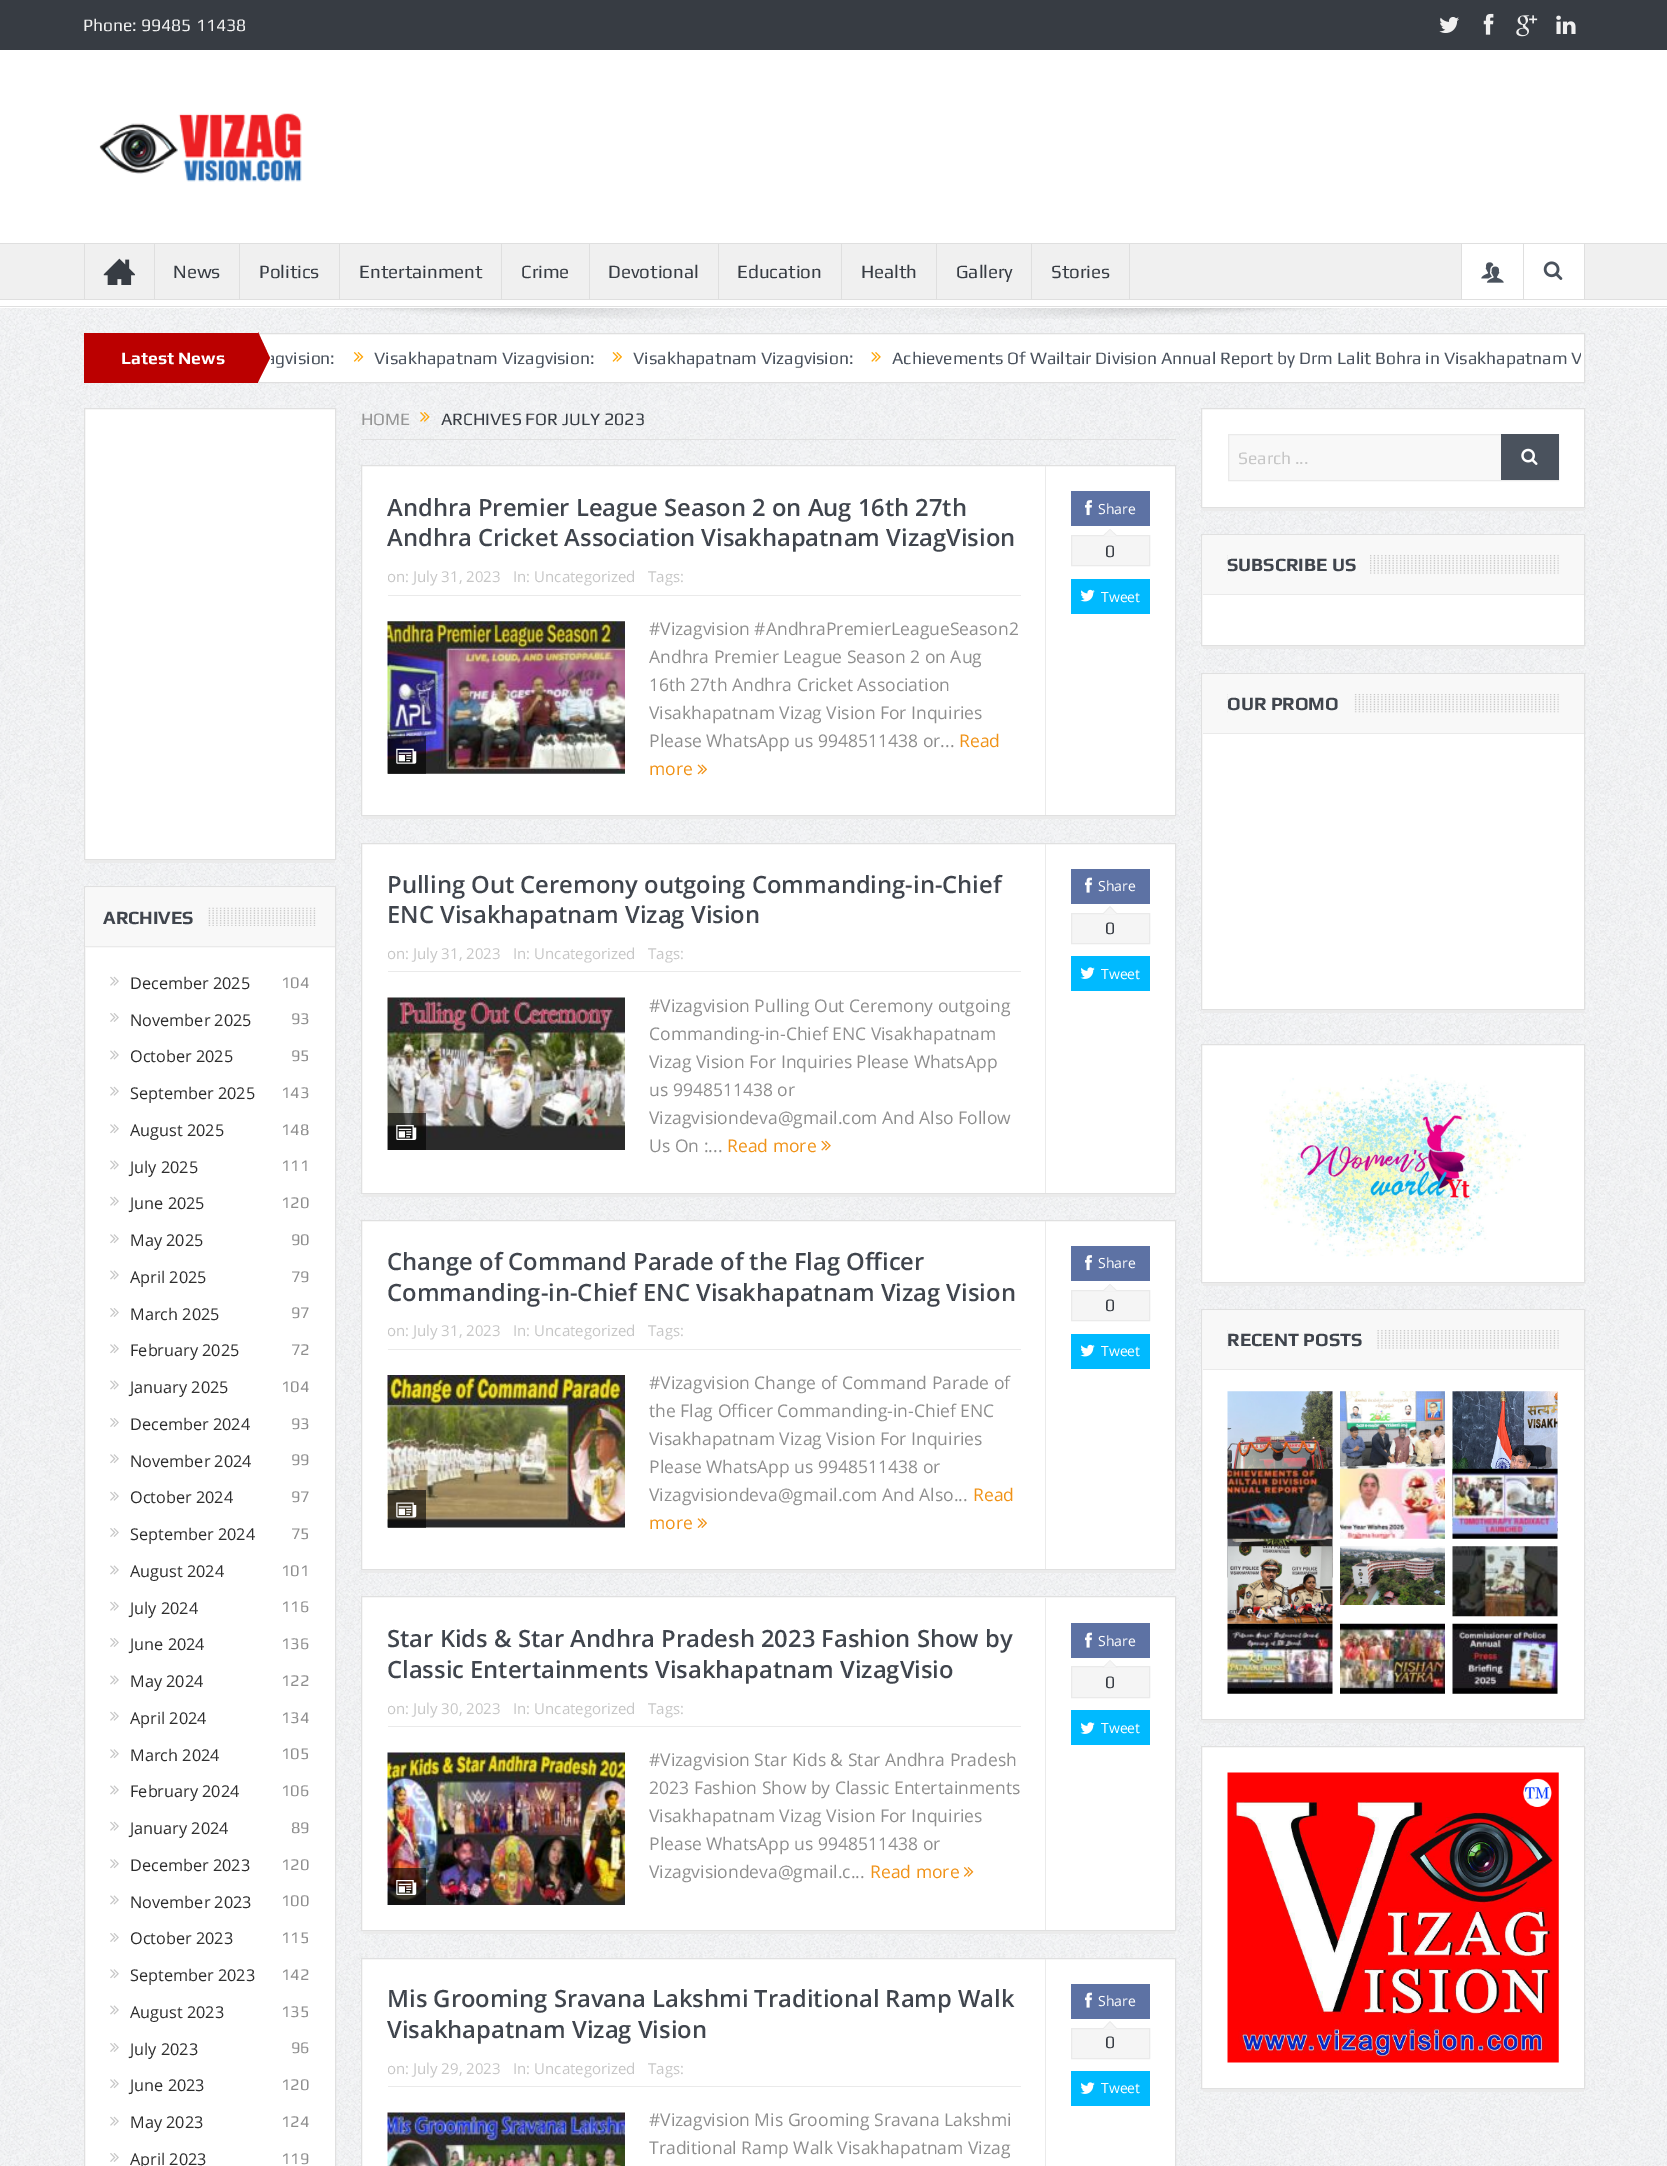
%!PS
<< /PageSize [1667 2166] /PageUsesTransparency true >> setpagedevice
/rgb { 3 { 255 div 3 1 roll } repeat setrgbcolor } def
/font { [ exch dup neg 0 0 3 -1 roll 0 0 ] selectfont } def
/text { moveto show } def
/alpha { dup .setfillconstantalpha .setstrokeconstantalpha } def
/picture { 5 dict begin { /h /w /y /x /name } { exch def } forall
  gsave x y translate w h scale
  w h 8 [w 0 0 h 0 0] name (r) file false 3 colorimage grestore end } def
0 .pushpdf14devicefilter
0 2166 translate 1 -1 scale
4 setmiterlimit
255 255 255 rgb
0 0 1667 2166 rectfill
(img_01.rgb) 0 308 1667 1858 picture
55 60 67 rgb
0 0 1667 50 rectfill
(img_02.rgb) 1439 17 20 16 picture
(img_03.rgb) 1483 13 11 22 picture
(img_04.rgb) 1516 15 22 22 picture
(img_05.rgb) 1556 15 20 19 picture
(img_06.rgb) 99 113 203 69 picture
223 223 223 rgb
0 243 1667 1 rectfill
0 306 1667 1 rectfill
240 240 240 rgb
0 244 1667 55 rectfill
223 223 223 rgb
0 299 1667 1 rectfill
84 244 1 55 rectfill
(img_07.rgb) 103 258 32 27 picture
154 244 1 55 rectfill
239 244 1 55 rectfill
339 244 1 55 rectfill
501 244 1 55 rectfill
589 244 1 55 rectfill
718 244 1 55 rectfill
841 244 1 55 rectfill
936 244 1 55 rectfill
1129 244 1 55 rectfill
1031 244 1 55 rectfill
255 255 255 rgb
1462 244 61 55 rectfill
223 223 223 rgb
1523 244 1 55 rectfill
1461 244 1 55 rectfill
(img_08.rgb) 1481 262 23 21 picture
255 255 255 rgb
1524 244 60 55 rectfill
223 223 223 rgb
1584 244 1 55 rectfill
(img_09.rgb) 1543 261 20 19 picture
(img_10.rgb) 334 308 1003 11 picture
187 0 0 rgb
84 333 174 50 rectfill
255 255 255 rgb
258.5 333.5 moveto 1326 0 rlineto 0 49 rlineto -1326 0 rlineto closepath gsave fill grestore
223 223 223 rgb
stroke
187 0 0 rgb
258 382 moveto 0 -50 rlineto 12 26 rlineto closepath fill
(img_11.rgb) 353 352 11 10 picture
(img_12.rgb) 612 352 10 10 picture
(img_13.rgb) 871 352 10 10 picture
255 255 255 rgb
84.5 408.5 moveto 251 0 rlineto 0 451 rlineto -251 0 rlineto closepath gsave fill grestore
224 224 224 rgb
stroke
235 235 235 rgb
85 860 250 3 rectfill
255 255 255 rgb
84.5 886.5 moveto 251 0 rlineto 0 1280 rlineto -251 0 rlineto closepath gsave fill grestore
224 224 224 rgb
stroke
248 248 248 rgb
85 888 250 60 rectfill
234 234 234 rgb
85 946 250 1 rectfill
(img_14.rgb) 208 907 108 19 picture
(img_15.rgb) 110 976 9 10 picture
(img_16.rgb) 110 1013 9 9 picture
(img_17.rgb) 110 1050 9 10 picture
(img_15.rgb) 110 1086 9 10 picture
(img_18.rgb) 110 1124 9 10 picture
(img_17.rgb) 110 1160 9 10 picture
(img_15.rgb) 110 1196 9 10 picture
(img_18.rgb) 110 1234 9 10 picture
(img_17.rgb) 110 1270 9 10 picture
(img_16.rgb) 110 1308 9 9 picture
(img_18.rgb) 110 1344 9 10 picture
(img_17.rgb) 110 1380 9 10 picture
(img_16.rgb) 110 1418 9 9 picture
(img_18.rgb) 110 1454 9 10 picture
(img_15.rgb) 110 1491 9 10 picture
(img_16.rgb) 110 1528 9 9 picture
(img_17.rgb) 110 1565 9 10 picture
(img_15.rgb) 110 1601 9 10 picture
(img_16.rgb) 110 1638 9 9 picture
(img_17.rgb) 110 1675 9 10 picture
(img_15.rgb) 110 1711 9 10 picture
(img_18.rgb) 110 1749 9 10 picture
(img_17.rgb) 110 1785 9 10 picture
(img_15.rgb) 110 1821 9 10 picture
(img_18.rgb) 110 1859 9 10 picture
(img_17.rgb) 110 1895 9 10 picture
(img_16.rgb) 110 1933 9 9 picture
(img_18.rgb) 110 1969 9 10 picture
(img_17.rgb) 110 2005 9 10 picture
(img_16.rgb) 110 2043 9 9 picture
(img_18.rgb) 110 2079 9 10 picture
(img_15.rgb) 110 2116 9 10 picture
(img_16.rgb) 110 2153 9 9 picture
224 224 224 rgb
361 439 815 1 rectfill
(img_19.rgb) 420 412 10 10 picture
255 255 255 rgb
361.5 465.5 moveto 814 0 rlineto 0 350 rlineto -814 0 rlineto closepath gsave fill grestore
224 224 224 rgb
stroke
234 234 234 rgb
388 595 633 1 rectfill
(img_20.rgb) 387 621 238 153 picture
0.6 alpha
0 0 0 rgb
388 736 38 38 rectfill
1 alpha
(img_21.rgb) 396 748 21 16 picture
(img_22.rgb) 697 764 10 11 picture
234 234 234 rgb
1045 466 1 349 rectfill
93 114 164 rgb
1071 491 79 35 rectfill
(img_23.rgb) 1085 500 7 16 picture
245 245 245 rgb
1071.5 535.5 moveto 78 0 rlineto 0 30 rlineto -78 0 rlineto closepath gsave fill grestore
234 234 234 rgb
stroke
1117.5 536 moveto -15 0 rlineto 7.5 -7 rlineto closepath fill
245 245 245 rgb
1116 536 moveto -12 0 rlineto 6 -6 rlineto closepath fill
0 186 255 rgb
1071 579 79 35 rectfill
(img_24.rgb) 1080 589 15 13 picture
235 235 235 rgb
363 816 812 3 rectfill
255 255 255 rgb
361.5 843.5 moveto 814 0 rlineto 0 350 rlineto -814 0 rlineto closepath gsave fill grestore
224 224 224 rgb
stroke
234 234 234 rgb
388 971 633 1 rectfill
(img_25.rgb) 387 997 238 153 picture
0.6 alpha
0 0 0 rgb
388 1113 38 37 rectfill
1 alpha
(img_26.rgb) 396 1125 21 15 picture
(img_27.rgb) 821 1140 10 11 picture
234 234 234 rgb
1045 844 1 349 rectfill
93 114 164 rgb
1071 869 79 35 rectfill
(img_28.rgb) 1085 877 7 16 picture
245 245 245 rgb
1071.5 913.5 moveto 78 0 rlineto 0 30 rlineto -78 0 rlineto closepath gsave fill grestore
234 234 234 rgb
stroke
1117.5 914 moveto -15 0 rlineto 7.5 -8 rlineto closepath fill
245 245 245 rgb
1116 914 moveto -12 0 rlineto 6 -6.5 rlineto closepath fill
0 186 255 rgb
1071 956 79 35 rectfill
(img_29.rgb) 1080 967 15 12 picture
235 235 235 rgb
363 1194 812 3 rectfill
255 255 255 rgb
361.5 1220.5 moveto 814 0 rlineto 0 349 rlineto -814 0 rlineto closepath gsave fill grestore
224 224 224 rgb
stroke
234 234 234 rgb
388 1349 633 1 rectfill
(img_30.rgb) 387 1375 238 153 picture
0.6 alpha
0 0 0 rgb
388 1490 38 38 rectfill
1 alpha
(img_31.rgb) 396 1502 21 16 picture
(img_32.rgb) 697 1518 10 10 picture
234 234 234 rgb
1045 1221 1 348 rectfill
93 114 164 rgb
1071 1246 79 35 rectfill
(img_23.rgb) 1085 1255 7 16 picture
245 245 245 rgb
1071.5 1290.5 moveto 78 0 rlineto 0 30 rlineto -78 0 rlineto closepath gsave fill grestore
234 234 234 rgb
stroke
1117.5 1291 moveto -15 0 rlineto 7.5 -7 rlineto closepath fill
245 245 245 rgb
1116 1291 moveto -12 0 rlineto 6 -6 rlineto closepath fill
0 186 255 rgb
1071 1334 79 35 rectfill
(img_24.rgb) 1080 1344 15 13 picture
235 235 235 rgb
363 1570 812 3 rectfill
255 255 255 rgb
361.5 1596.5 moveto 814 0 rlineto 0 334 rlineto -814 0 rlineto closepath gsave fill grestore
224 224 224 rgb
stroke
234 234 234 rgb
388 1726 633 1 rectfill
(img_33.rgb) 387 1752 238 153 picture
0.6 alpha
0 0 0 rgb
388 1868 38 37 rectfill
1 alpha
(img_34.rgb) 396 1880 21 15 picture
(img_35.rgb) 963 1867 11 10 picture
234 234 234 rgb
1045 1598 1 332 rectfill
93 114 164 rgb
1071 1623 79 35 rectfill
(img_28.rgb) 1085 1632 7 16 picture
245 245 245 rgb
1071.5 1666.5 moveto 78 0 rlineto 0 31 rlineto -78 0 rlineto closepath gsave fill grestore
234 234 234 rgb
stroke
1117.5 1667.5 moveto -15 0 rlineto 7.5 -7.5 rlineto closepath fill
245 245 245 rgb
1116 1667.5 moveto -12 0 rlineto 6 -6.5 rlineto closepath fill
0 186 255 rgb
1071 1710 79 35 rectfill
(img_29.rgb) 1080 1722 15 12 picture
235 235 235 rgb
363 1931 812 3 rectfill
255 255 255 rgb
361.5 1958.5 moveto 814 0 rlineto 0 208 rlineto -814 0 rlineto closepath gsave fill grestore
224 224 224 rgb
stroke
234 234 234 rgb
388 2086 633 1 rectfill
(img_36.rgb) 387 2112 238 54 picture
1045 1959 1 207 rectfill
93 114 164 rgb
1071 1984 79 35 rectfill
(img_28.rgb) 1085 1992 7 16 picture
245 245 245 rgb
1071.5 2028.5 moveto 78 0 rlineto 0 30 rlineto -78 0 rlineto closepath gsave fill grestore
234 234 234 rgb
stroke
1117.5 2029 moveto -15 0 rlineto 7.5 -8 rlineto closepath fill
245 245 245 rgb
1116 2029 moveto -12 0 rlineto 6 -6.5 rlineto closepath fill
0 186 255 rgb
1071 2071 79 35 rectfill
(img_29.rgb) 1080 2082 15 12 picture
255 255 255 rgb
1201.5 408.5 moveto 383 0 rlineto 0 99 rlineto -383 0 rlineto closepath gsave fill grestore
224 224 224 rgb
stroke
248 248 248 rgb
1229 435 272 45 rectfill
234 234 234 rgb
1228.5 434.5 330 46 rectstroke
74 82 93 rgb
1501 434 58 46 rectfill
(img_37.rgb) 1521 448 17 17 picture
235 235 235 rgb
1203 508 381 3 rectfill
255 255 255 rgb
1201.5 534.5 moveto 383 0 rlineto 0 111 rlineto -383 0 rlineto closepath gsave fill grestore
224 224 224 rgb
stroke
248 248 248 rgb
1203 535 381 59 rectfill
234 234 234 rgb
1203 594 381 1 rectfill
(img_38.rgb) 1227 555 332 19 picture
248 248 248 rgb
1228 555 142 19 rectfill
235 235 235 rgb
1203 646 381 3 rectfill
255 255 255 rgb
1201.5 673.5 moveto 383 0 rlineto 0 336 rlineto -383 0 rlineto closepath gsave fill grestore
224 224 224 rgb
stroke
248 248 248 rgb
1203 674 381 59 rectfill
234 234 234 rgb
1203 733 381 1 rectfill
(img_39.rgb) 1227 694 332 19 picture
248 248 248 rgb
1228 694 125 19 rectfill
235 235 235 rgb
1203 1010 381 3 rectfill
255 255 255 rgb
1201.5 1044.5 moveto 383 0 rlineto 0 238 rlineto -383 0 rlineto closepath gsave fill grestore
224 224 224 rgb
stroke
(img_40.rgb) 1260 1074 266 183 picture
235 235 235 rgb
1203 1283 381 3 rectfill
255 255 255 rgb
1201.5 1309.5 moveto 383 0 rlineto 0 410 rlineto -383 0 rlineto closepath gsave fill grestore
224 224 224 rgb
stroke
248 248 248 rgb
1203 1310 381 59 rectfill
234 234 234 rgb
1203 1369 381 1 rectfill
(img_38.rgb) 1227 1330 332 19 picture
248 248 248 rgb
1228 1330 148 19 rectfill
(img_41.rgb) 1227 1391 106 187 picture
(img_42.rgb) 1340 1391 105 78 picture
(img_43.rgb) 1452 1391 106 141 picture
(img_44.rgb) 1227 1468 106 71 picture
(img_45.rgb) 1340 1468 105 71 picture
(img_46.rgb) 1452 1468 106 71 picture
(img_47.rgb) 1227 1546 106 78 picture
(img_48.rgb) 1340 1546 105 59 picture
(img_49.rgb) 1452 1546 106 71 picture
(img_50.rgb) 1227 1623 106 71 picture
(img_51.rgb) 1340 1623 105 71 picture
(img_52.rgb) 1452 1623 106 71 picture
235 235 235 rgb
1203 1720 381 3 rectfill
255 255 255 rgb
1201.5 1746.5 moveto 383 0 rlineto 0 342 rlineto -383 0 rlineto closepath gsave fill grestore
224 224 224 rgb
stroke
(img_53.rgb) 1227 1772 332 291 picture
235 235 235 rgb
1203 2089 381 3 rectfill
/Play-Regular 17.5 font
240 240 240 rgb
(Phone: 99485 11438) 83 31 text
/Play-Regular 18.75 font
55 60 67 rgb
(News) 173 278 text
(Politics) 259 278 text
(Entertainment) 359 278 text
(Crime) 521 278 text
(Devotional) 608 278 text
(Education) 737 278 text
(Health) 861 278 text
(Gallery) 956 278 text
(Stories) 1051 278 text
/Play-Bold 17.5 font
255 255 255 rgb
(Latest News) 121 364 text
gsave
271 334 1310 47 rectclip
/Play-Regular 17.5 font
74 82 93 rgb
(agvision:) 266 364 text
grestore
/Play-Regular 17.5 font
74 82 93 rgb
(Visakhapatnam Vizagvision:) 374 364 text
(Visakhapatnam Vizagvision:) 633 364 text
gsave
271 334 1310 47 rectclip
(Achievements Of Wailtair Division Annual Report by Drm Lalit Bohra in Visakhapatnam V) 892 364 text
grestore
/Play-Bold 18.75 font
64 69 77 rgb
(ARCHIVES) 103 924 text
/OpenSans-Regular 16.25 font
45 45 45 rgb
(December 2025) 130 989 text
/Play-Regular 16.25 font
142 142 142 rgb
(104) 281 988 text
/OpenSans-Regular 16.25 font
45 45 45 rgb
(November 2025) 130 1026 text
/Play-Regular 16.25 font
142 142 142 rgb
(93) 291 1024 text
/OpenSans-Regular 16.25 font
45 45 45 rgb
(October 2025) 130 1062 text
/Play-Regular 16.25 font
142 142 142 rgb
(95) 291 1061 text
/OpenSans-Regular 16.25 font
45 45 45 rgb
(September 2025) 130 1099 text
/Play-Regular 16.25 font
142 142 142 rgb
(143) 281 1098 text
/OpenSans-Regular 16.25 font
45 45 45 rgb
(August 2025) 130 1136 text
/Play-Regular 16.25 font
142 142 142 rgb
(148) 281 1135 text
/OpenSans-Regular 16.25 font
45 45 45 rgb
(July 2025) 130 1173 text
/Play-Regular 16.25 font
142 142 142 rgb
(111) 281 1171 text
/OpenSans-Regular 16.25 font
45 45 45 rgb
(June 2025) 130 1209 text
/Play-Regular 16.25 font
142 142 142 rgb
(120) 281 1208 text
/OpenSans-Regular 16.25 font
45 45 45 rgb
(May 2025) 130 1246 text
/Play-Regular 16.25 font
142 142 142 rgb
(90) 291 1245 text
/OpenSans-Regular 16.25 font
45 45 45 rgb
(April 2025) 130 1283 text
/Play-Regular 16.25 font
142 142 142 rgb
(79) 291 1282 text
/OpenSans-Regular 16.25 font
45 45 45 rgb
(March 2025) 130 1320 text
/Play-Regular 16.25 font
142 142 142 rgb
(97) 291 1318 text
/OpenSans-Regular 16.25 font
45 45 45 rgb
(February 2025) 130 1356 text
/Play-Regular 16.25 font
142 142 142 rgb
(72) 291 1355 text
/OpenSans-Regular 16.25 font
45 45 45 rgb
(January 2025) 130 1393 text
/Play-Regular 16.25 font
142 142 142 rgb
(104) 281 1392 text
/OpenSans-Regular 16.25 font
45 45 45 rgb
(December 2024) 130 1430 text
/Play-Regular 16.25 font
142 142 142 rgb
(93) 291 1429 text
/OpenSans-Regular 16.25 font
45 45 45 rgb
(November 2024) 130 1467 text
/Play-Regular 16.25 font
142 142 142 rgb
(99) 291 1465 text
/OpenSans-Regular 16.25 font
45 45 45 rgb
(October 2024) 130 1503 text
/Play-Regular 16.25 font
142 142 142 rgb
(97) 291 1502 text
/OpenSans-Regular 16.25 font
45 45 45 rgb
(September 2024) 130 1540 text
/Play-Regular 16.25 font
142 142 142 rgb
(75) 291 1539 text
/OpenSans-Regular 16.25 font
45 45 45 rgb
(August 2024) 130 1577 text
/Play-Regular 16.25 font
142 142 142 rgb
(101) 281 1576 text
/OpenSans-Regular 16.25 font
45 45 45 rgb
(July 2024) 130 1614 text
/Play-Regular 16.25 font
142 142 142 rgb
(116) 281 1612 text
/OpenSans-Regular 16.25 font
45 45 45 rgb
(June 2024) 130 1650 text
/Play-Regular 16.25 font
142 142 142 rgb
(136) 281 1649 text
/OpenSans-Regular 16.25 font
45 45 45 rgb
(May 2024) 130 1687 text
/Play-Regular 16.25 font
142 142 142 rgb
(122) 281 1686 text
/OpenSans-Regular 16.25 font
45 45 45 rgb
(April 2024) 130 1724 text
/Play-Regular 16.25 font
142 142 142 rgb
(134) 281 1723 text
/OpenSans-Regular 16.25 font
45 45 45 rgb
(March 2024) 130 1761 text
/Play-Regular 16.25 font
142 142 142 rgb
(105) 281 1759 text
/OpenSans-Regular 16.25 font
45 45 45 rgb
(February 2024) 130 1797 text
/Play-Regular 16.25 font
142 142 142 rgb
(106) 281 1796 text
/OpenSans-Regular 16.25 font
45 45 45 rgb
(January 2024) 130 1834 text
/Play-Regular 16.25 font
142 142 142 rgb
(89) 291 1833 text
/OpenSans-Regular 16.25 font
45 45 45 rgb
(December 2023) 130 1871 text
/Play-Regular 16.25 font
142 142 142 rgb
(120) 281 1870 text
/OpenSans-Regular 16.25 font
45 45 45 rgb
(November 2023) 130 1908 text
/Play-Regular 16.25 font
142 142 142 rgb
(100) 281 1906 text
/OpenSans-Regular 16.25 font
45 45 45 rgb
(October 2023) 130 1944 text
/Play-Regular 16.25 font
142 142 142 rgb
(115) 281 1943 text
/OpenSans-Regular 16.25 font
45 45 45 rgb
(September 2023) 130 1981 text
/Play-Regular 16.25 font
142 142 142 rgb
(142) 281 1980 text
/OpenSans-Regular 16.25 font
45 45 45 rgb
(August 2023) 130 2018 text
/Play-Regular 16.25 font
142 142 142 rgb
(135) 281 2017 text
/OpenSans-Regular 16.25 font
45 45 45 rgb
(July 2023) 130 2055 text
/Play-Regular 16.25 font
142 142 142 rgb
(96) 291 2053 text
/OpenSans-Regular 16.25 font
45 45 45 rgb
(June 2023) 130 2091 text
/Play-Regular 16.25 font
142 142 142 rgb
(120) 281 2090 text
/OpenSans-Regular 16.25 font
45 45 45 rgb
(May 2023) 130 2128 text
/Play-Regular 16.25 font
142 142 142 rgb
(124) 281 2127 text
/OpenSans-Regular 16.25 font
45 45 45 rgb
(April 2023) 130 2165 text
/Play-Regular 16.25 font
142 142 142 rgb
(119) 281 2164 text
/Play-Regular 17.5 font
149 149 149 rgb
(HOME) 361 425 text
55 60 67 rgb
(ARCHIVES FOR JULY 2023) 441 425 text
/OpenSans-SemiBold 23.75 font
64 69 77 rgb
(Andhra Premier League Season 2 on Aug 16th 27th) 387 516 text
(Andhra Cricket Association Visakhapatnam VizagVision) 387 546 text
gsave
388 566 633 22 rectclip
/OpenSans-Regular 15 font
198 198 198 rgb
(on:) 387 582 text
grestore
/OpenSans-Regular 15 font
198 198 198 rgb
(July 31, 2023) 413 582 text
(In: Uncategorized) 513 582 text
(Tags:) 648 582 text
/OpenSans-Regular 17.5 font
142 142 142 rgb
(#Vizagvision #AndhraPremierLeagueSeason2) 649 635 text
(Andhra Premier League Season 2 on Aug) 649 663 text
(16th 27th Andhra Cricket Association) 649 691 text
(Visakhapatnam Vizag Vision For Inquiries) 649 719 text
240 146 23 rgb
(Read) 959 747 text
(more) 649 775 text
142 142 142 rgb
(Please WhatsApp us 9948511438 or...) 649 747 text
/OpenSans-Regular 14 font
255 255 255 rgb
(Share) 1098 514 text
/Play-Regular 17.5 font
55 60 67 rgb
(0) 1105 557 text
/OpenSans-Regular 14 font
255 255 255 rgb
(Tweet) 1101 602 text
/OpenSans-SemiBold 23.75 font
64 69 77 rgb
(Pulling Out Ceremony outgoing Commanding-in-Chief) 387 893 text
(ENC Visakhapatnam Vizag Vision) 387 923 text
gsave
388 944 633 20 rectclip
/OpenSans-Regular 15 font
198 198 198 rgb
(on:) 387 959 text
grestore
/OpenSans-Regular 15 font
198 198 198 rgb
(July 31, 2023) 413 959 text
(In: Uncategorized) 513 959 text
(Tags:) 648 959 text
/OpenSans-Regular 17.5 font
142 142 142 rgb
(#Vizagvision Pulling Out Ceremony outgoing) 649 1012 text
(Commanding-in-Chief ENC Visakhapatnam) 649 1040 text
(Vizag Vision For Inquiries Please WhatsApp) 649 1068 text
(us 9948511438 or) 649 1096 text
(Vizagvisiondeva@gmail.com And Also Follow) 649 1124 text
(Us On :...) 649 1152 text
240 146 23 rgb
(Read more) 727 1152 text
/OpenSans-Regular 14 font
255 255 255 rgb
(Share) 1098 891 text
/Play-Regular 17.5 font
55 60 67 rgb
(0) 1105 934 text
/OpenSans-Regular 14 font
255 255 255 rgb
(Tweet) 1101 979 text
/OpenSans-SemiBold 23.75 font
64 69 77 rgb
(Change of Command Parade of the Flag Officer) 387 1270 text
(Commanding-in-Chief ENC Visakhapatnam Vizag Vision) 387 1301 text
gsave
388 1320 633 21 rectclip
/OpenSans-Regular 15 font
198 198 198 rgb
(on:) 387 1336 text
grestore
/OpenSans-Regular 15 font
198 198 198 rgb
(July 31, 2023) 413 1336 text
(In: Uncategorized) 513 1336 text
(Tags:) 648 1336 text
/OpenSans-Regular 17.5 font
142 142 142 rgb
(#Vizagvision Change of Command Parade of) 649 1389 text
(the Flag Officer Commanding-in-Chief ENC) 649 1417 text
(Visakhapatnam Vizag Vision For Inquiries) 649 1445 text
(Please WhatsApp us 9948511438 or) 649 1473 text
(Vizagvisiondeva@gmail.com And Also...) 649 1501 text
240 146 23 rgb
(Read) 973 1501 text
(more) 649 1529 text
/OpenSans-Regular 14 font
255 255 255 rgb
(Share) 1098 1268 text
/Play-Regular 17.5 font
55 60 67 rgb
(0) 1105 1311 text
/OpenSans-Regular 14 font
255 255 255 rgb
(Tweet) 1101 1356 text
/OpenSans-SemiBold 23.75 font
64 69 77 rgb
(Star Kids & Star Andhra Pradesh 2023 Fashion Show by) 387 1647 text
(Classic Entertainments Visakhapatnam VizagVisio) 387 1678 text
gsave
388 1698 633 21 rectclip
/OpenSans-Regular 15 font
198 198 198 rgb
(on:) 387 1714 text
grestore
/OpenSans-Regular 15 font
198 198 198 rgb
(July 30, 2023) 413 1714 text
(In: Uncategorized) 513 1714 text
(Tags:) 648 1714 text
/OpenSans-Regular 17.5 font
142 142 142 rgb
(#Vizagvision Star Kids & Star Andhra Pradesh) 649 1766 text
(2023 Fashion Show by Classic Entertainments) 649 1794 text
(Visakhapatnam Vizag Vision For Inquiries) 649 1822 text
(Please WhatsApp us 9948511438 or) 649 1850 text
(Vizagvisiondeva@gmail.c...) 649 1878 text
240 146 23 rgb
(Read more) 870 1878 text
/OpenSans-Regular 14 font
255 255 255 rgb
(Share) 1098 1646 text
/Play-Regular 17.5 font
55 60 67 rgb
(0) 1105 1688 text
/OpenSans-Regular 14 font
255 255 255 rgb
(Tweet) 1101 1733 text
/OpenSans-SemiBold 23.75 font
64 69 77 rgb
(Mis Grooming Sravana Lakshmi Traditional Ramp Walk) 387 2007 text
(Visakhapatnam Vizag Vision) 387 2038 text
gsave
388 2058 633 21 rectclip
/OpenSans-Regular 15 font
198 198 198 rgb
(on:) 387 2074 text
grestore
/OpenSans-Regular 15 font
198 198 198 rgb
(July 29, 2023) 413 2074 text
(In: Uncategorized) 513 2074 text
(Tags:) 648 2074 text
/OpenSans-Regular 17.5 font
142 142 142 rgb
(#Vizagvision Mis Grooming Sravana Lakshmi) 649 2126 text
(Traditional Ramp Walk Visakhapatnam Vizag) 649 2154 text
/OpenSans-Regular 14 font
255 255 255 rgb
(Share) 1098 2006 text
/Play-Regular 17.5 font
55 60 67 rgb
(0) 1105 2048 text
/OpenSans-Regular 14 font
255 255 255 rgb
(Tweet) 1101 2093 text
/Play-Regular 17.5 font
198 198 198 rgb
(Search ...) 1238 464 text
/Play-Bold 18.75 font
64 69 77 rgb
(SUBSCRIBE US) 1227 571 text
(OUR PROMO) 1227 710 text
(RECENT POSTS) 1227 1346 text
.poppdf14devicefilter showpage
